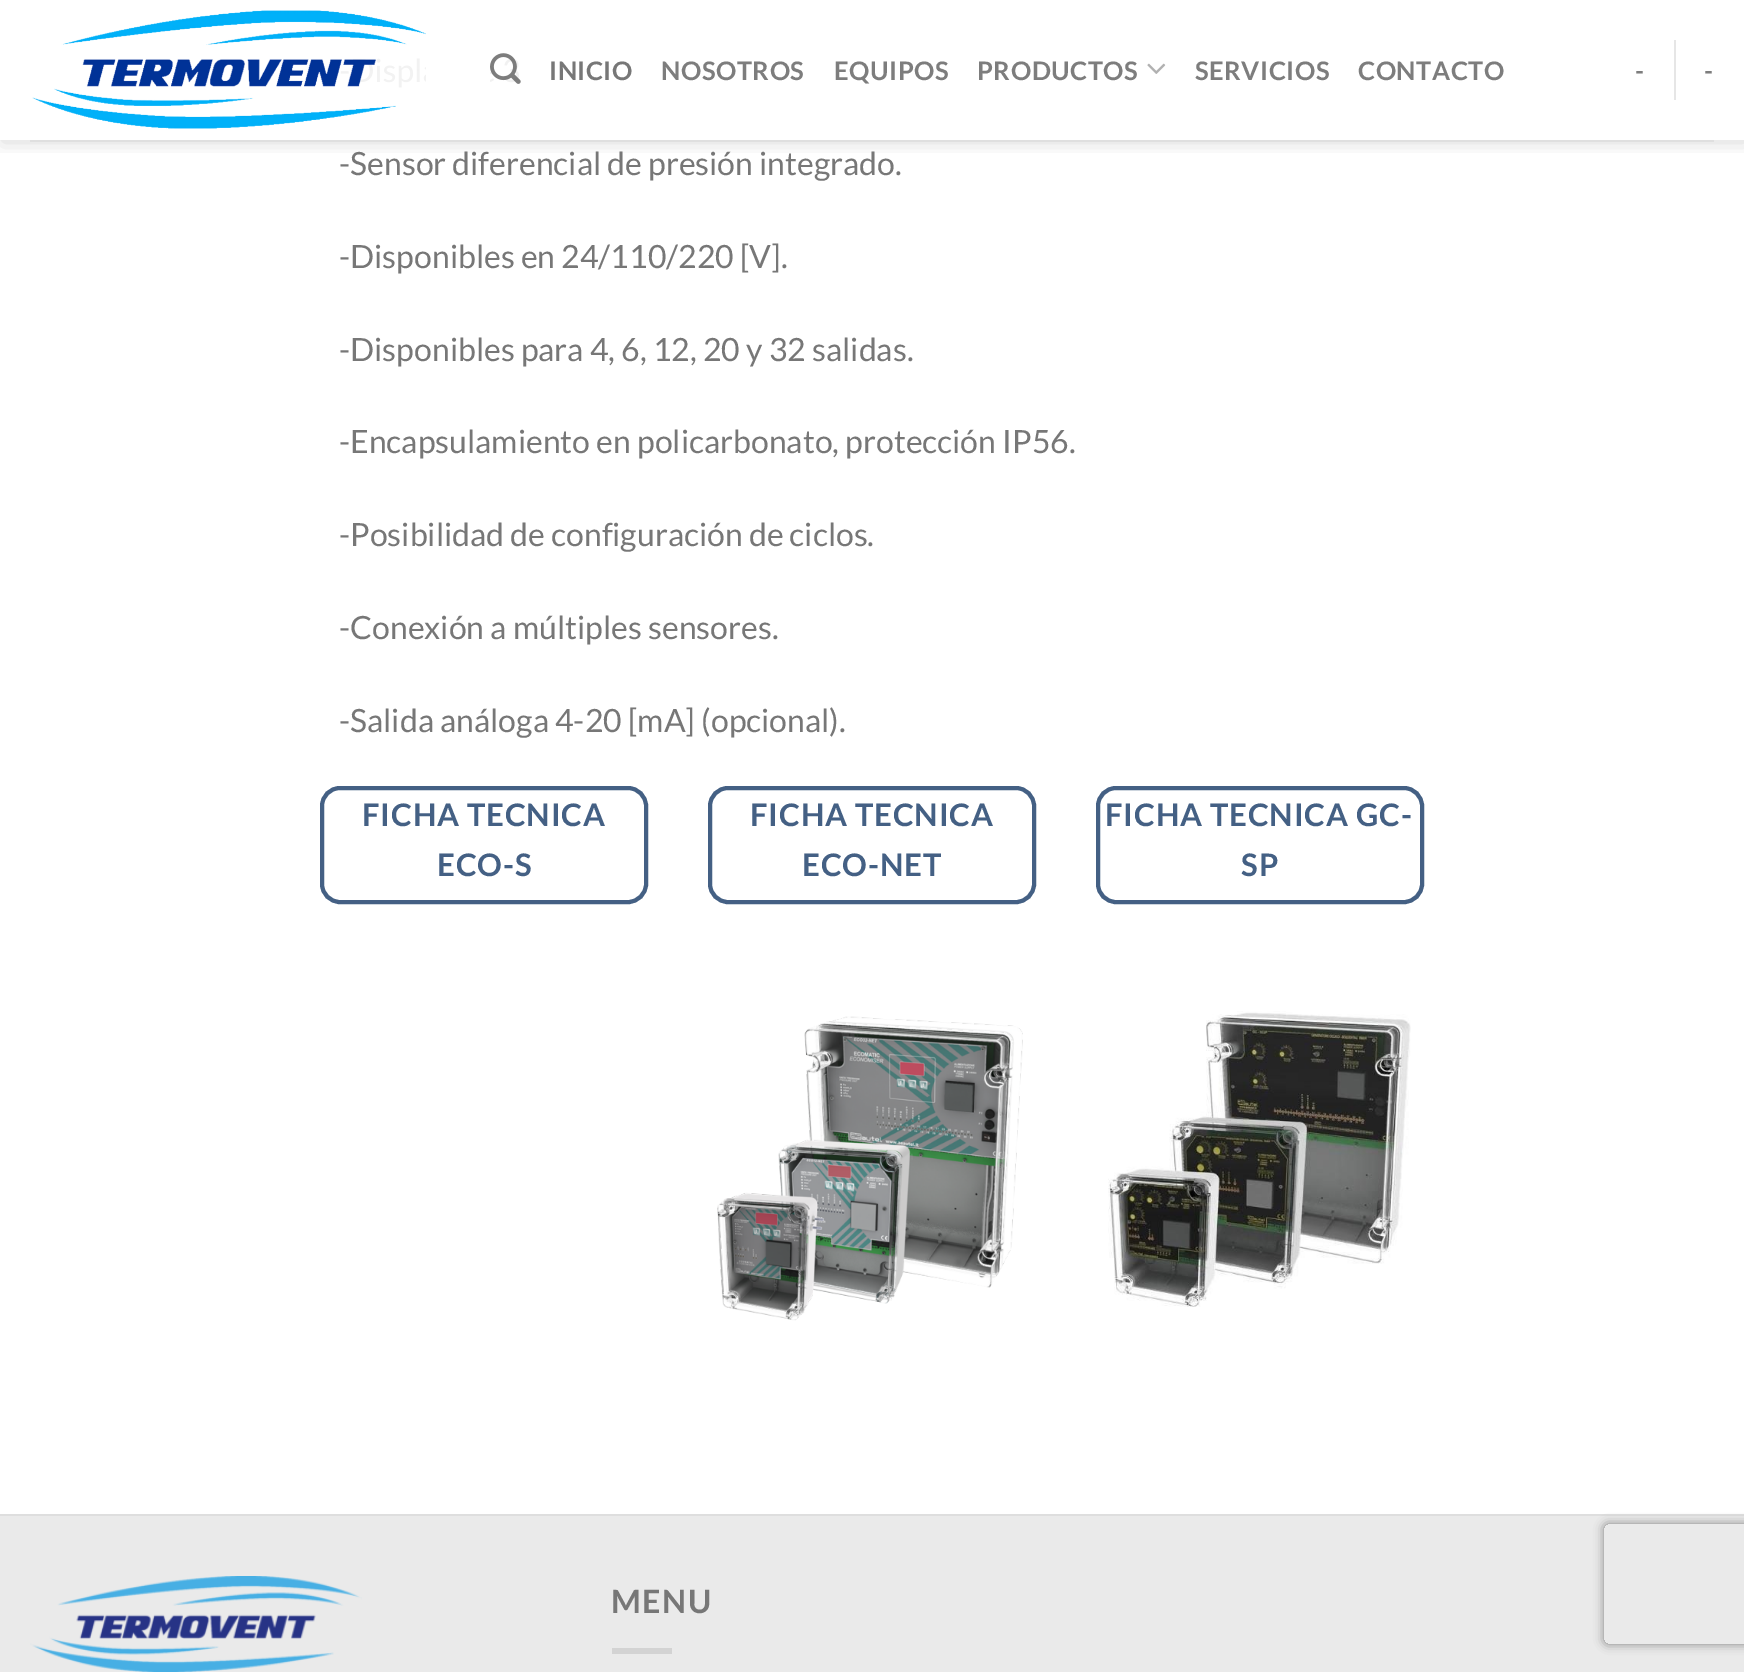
%!PS
<< /PageSize [1744 1672] /PageUsesTransparency true >> setpagedevice
/rgb { 3 { 255 div 3 1 roll } repeat setrgbcolor } def
/font { [ exch dup neg 0 0 3 -1 roll 0 0 ] selectfont } def
/text { moveto show } def
/alpha { dup .setfillconstantalpha .setstrokeconstantalpha } def
/roundrect { 5 dict begin { /r /h /w /y /x } { exch def } forall
  x r add y moveto x w add y 2 copy h add r arct x w add y h add x 1 index r arct
  x y h add x y r arct x y 2 copy exch w add exch r arct closepath end } def
/shadow { 12 dict begin { /a /b /q /h /w /y /x } { exch def } forall gsave /was 0 def
  9 -2 -9 { dup b mul 4 div /e exch def 1 sub .425 mul 2.718 exch exp 1 add a .99 .min exch div /now exch def
    1 1 now sub 1 was sub div sub alpha /was now def
    w h .min e 2 mul add 0 gt { x e sub y e sub w e 2 mul add h e 2 mul add
      q e add b .6 mul add w h .min 2 div e add .min 0 .max roundrect fill } if } for grestore end } def
/picture { 5 dict begin { /h /w /y /x /name } { exch def } forall
  gsave x y translate w h scale
  w h 8 [w 0 0 h 0 0] name (r) file false 3 colorimage grestore end } def
0 .pushpdf14devicefilter
0 1672 translate 1 -1 scale
4 setmiterlimit
255 255 255 rgb
0 0 1744 1672 rectfill
gsave
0 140 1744 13 rectclip
0 0 0 rgb
2 2 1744 140 0 10 0.15 shadow
grestore
(img_01.rgb) 32 10 394 119 picture
(img_02.rgb) 490 53 31 31 picture
(img_03.rgb) 1147 63 19 11 picture
230 230 230 rgb
1674 40 2 60 rectfill
223 223 223 rgb
30 140 1684 2 rectfill
68 96 132 rgb
4 setlinewidth
322 788 324 114 18 roundrect stroke
710 788 324 114 18 roundrect stroke
1098 788 324 114 18 roundrect stroke
(img_04.rgb) 717 1016 306 305 picture
(img_05.rgb) 1108 1011 303 296 picture
234 234 234 rgb
0 1516 1744 156 rectfill
222 222 222 rgb
0 1514 1744 2 rectfill
(img_06.rgb) 30 1576 332 96 picture
211 211 211 rgb
612 1648 60 6 rectfill
gsave
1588 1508 moveto 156 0 rlineto 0 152 rlineto -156 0 rlineto closepath 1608 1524 moveto 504 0 rlineto 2 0 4 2 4 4 rcurveto 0 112 rlineto 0 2 -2 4 -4 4 rcurveto -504 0 rlineto -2 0 -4 -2 -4 -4 rcurveto 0 -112 rlineto 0 -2 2 -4 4 -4 rcurveto closepath eoclip newpath
128 128 128 rgb
1604 1524 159 120 4 5 1 shadow
grestore
/Lato-Bold 25.5 font
119 119 119 rgb
549 80 moveto 0.5 0 (INICIO) ashow
125 125 125 rgb
661 80 moveto 0.5 0 (NOSOTROS) ashow
834 80 moveto 0.5 0 (EQUIPOS) ashow
977 80 moveto 0.5 0 (PRODUCTOS) ashow
1195 80 moveto 0.5 0 (SERVICIOS) ashow
1358 80 moveto 0.5 0 (CONTACTO) ashow
1635 80 moveto 0.5 0 (-) ashow
1704 80 moveto 0.5 0 (-) ashow
/Lato-Regular 32 font
119 119 119 rgb
(-Sensor diferencial de presión integrado.) 339 175 text
(-Disponibles en 24/110/220 [V].) 339 268 text
(-Disponibles para 4, 6, 12, 20 y 32 salidas.) 339 361 text
(-Encapsulamiento en policarbonato, protección IP56.) 339 453 text
(-Posibilidad de configuración de ciclos.) 339 546 text
(-Conexión a múltiples sensores.) 339 639 text
(-Salida análoga 4-20 [mA] \(opcional\).) 339 732 text
/Lato-Bold 31 font
68 96 132 rgb
362 826 moveto 0.9 0 (FICHA TECNICA) ashow
437 876 moveto 0.9 0 (ECO-S) ashow
750 826 moveto 0.9 0 (FICHA TECNICA) ashow
802 876 moveto 0.9 0 (ECO-NET) ashow
1105 826 moveto 0.9 0 (FICHA TECNICA GC-) ashow
1241 876 moveto 0.9 0 (SP) ashow
/Lato-Bold 32 font
119 119 119 rgb
611 1613 moveto 1.5 0 (MENU) ashow
.poppdf14devicefilter showpage
